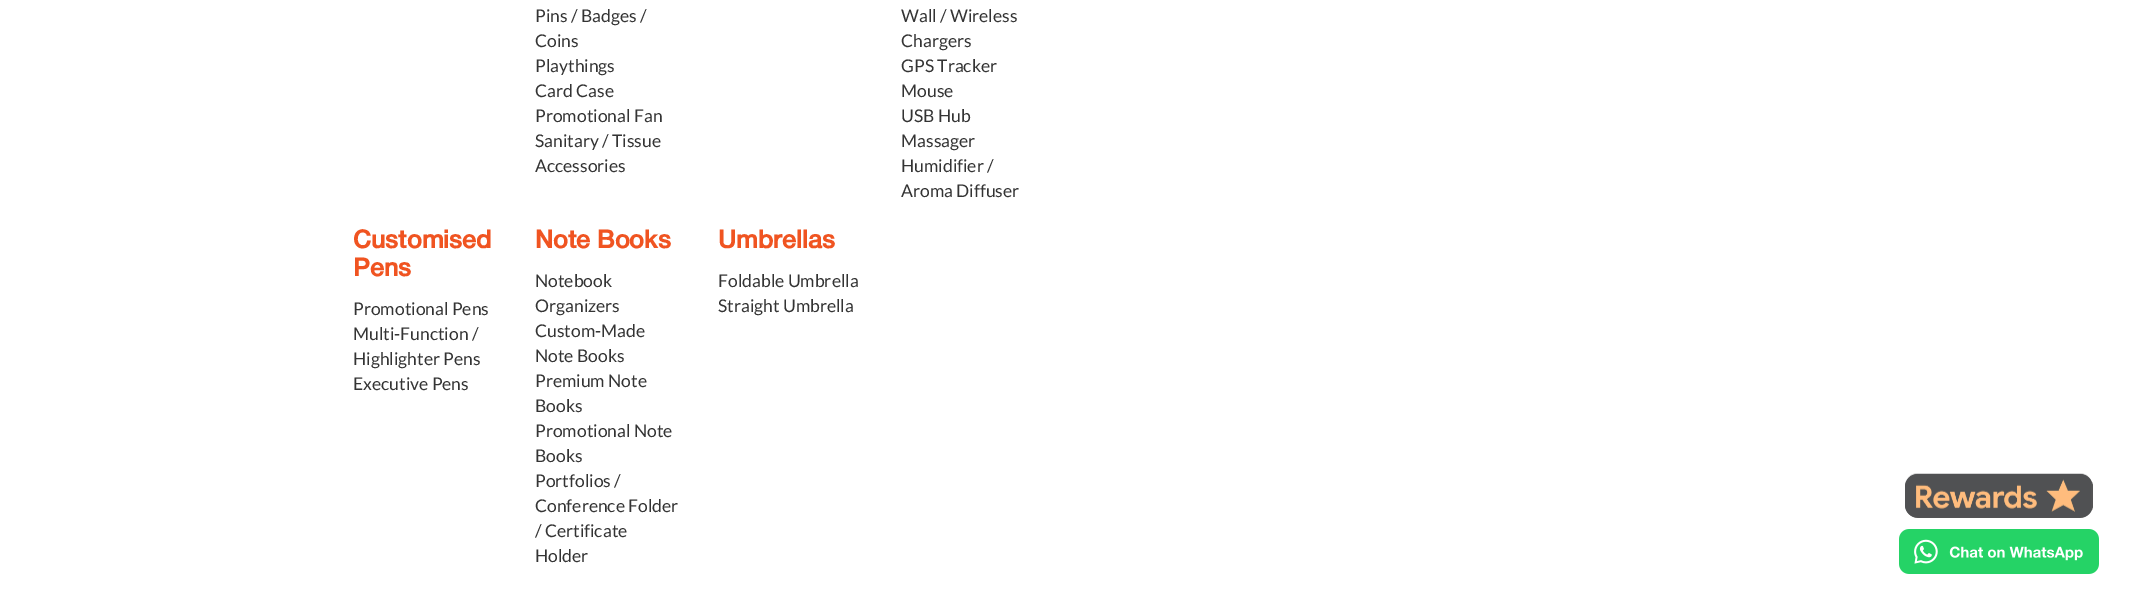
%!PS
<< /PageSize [2129 604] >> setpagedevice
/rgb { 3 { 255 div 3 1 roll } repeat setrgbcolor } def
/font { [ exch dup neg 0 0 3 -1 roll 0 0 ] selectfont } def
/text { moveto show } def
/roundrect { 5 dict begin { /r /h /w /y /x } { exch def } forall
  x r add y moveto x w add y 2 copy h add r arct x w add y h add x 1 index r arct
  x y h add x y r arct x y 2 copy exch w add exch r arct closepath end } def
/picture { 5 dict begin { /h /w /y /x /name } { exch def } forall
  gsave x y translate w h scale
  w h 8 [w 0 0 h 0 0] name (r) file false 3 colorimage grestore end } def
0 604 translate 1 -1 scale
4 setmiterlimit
255 255 255 rgb
0 0 2129 604 rectfill
85 85 85 rgb
1905 474 188 44 13 roundrect fill
(img_01.rgb) 1905 473 187 45 picture
(img_02.rgb) 1899 529 200 45 picture
/Lato-Regular 17.5 font
52 52 52 rgb
(Pins / Badges /) 535 22 text
(Coins) 535 47 text
(Playthings) 535 72 text
(Card Case) 535 97 text
(Promotional Fan) 535 122 text
(Sanitary / Tissue) 535 147 text
(Accessories) 535 172 text
(Wall / Wireless) 901 22 text
(Chargers) 901 47 text
(GPS Tracker) 901 72 text
(Mouse) 901 97 text
(USB Hub) 901 122 text
(Massager) 901 147 text
(Humidifier /) 901 172 text
(Aroma Diffuser) 901 197 text
/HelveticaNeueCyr-Bold 25 font
240 84 33 rgb
(Customised) 353 248 text
(Pens) 353 276 text
/Lato-Regular 17.5 font
52 52 52 rgb
(Promotional Pens) 353 315 text
(Multi-Function /) 353 340 text
(Highlighter Pens) 353 365 text
(Executive Pens) 353 390 text
/HelveticaNeueCyr-Bold 25 font
240 84 33 rgb
(Note Books) 535 248 text
/Lato-Regular 17.5 font
52 52 52 rgb
(Notebook) 535 287 text
(Organizers) 535 312 text
(Custom-Made) 535 337 text
(Note Books) 535 362 text
(Premium Note) 535 387 text
(Books) 535 412 text
(Promotional Note) 535 437 text
(Books) 535 462 text
(Portfolios /) 535 487 text
(Conference Folder) 535 512 text
(/ Certificate) 535 537 text
(Holder) 535 562 text
/HelveticaNeueCyr-Bold 25 font
240 84 33 rgb
(Umbrellas) 718 248 text
/Lato-Regular 17.5 font
52 52 52 rgb
(Foldable Umbrella) 718 287 text
(Straight Umbrella) 718 312 text
showpage
